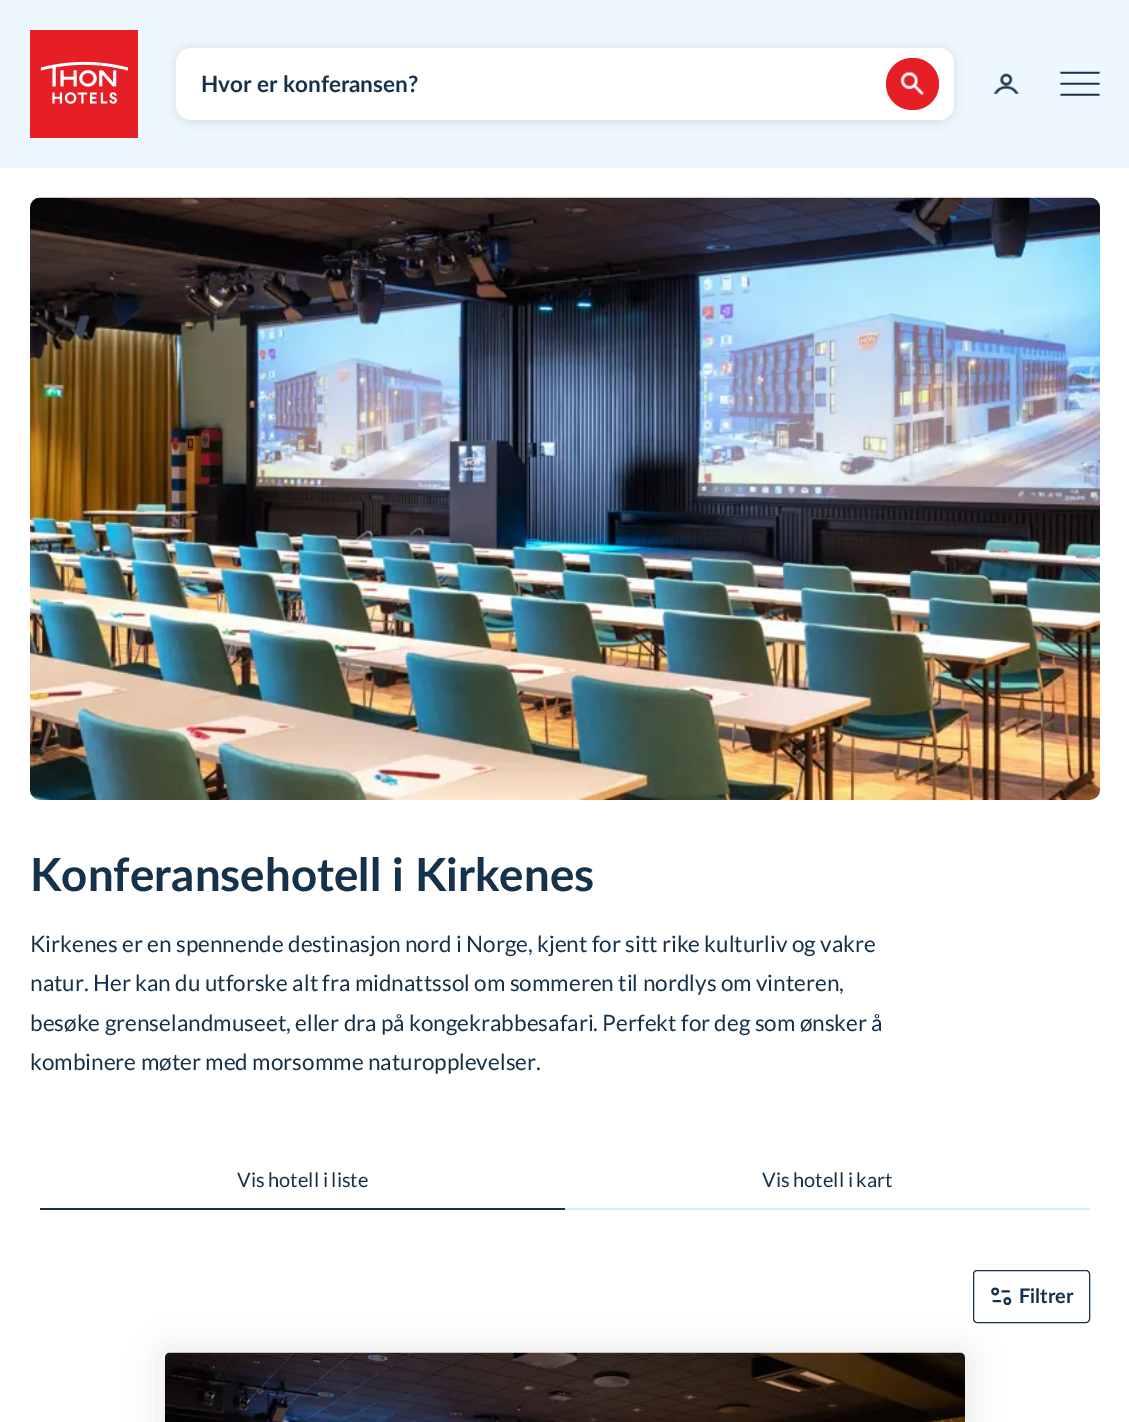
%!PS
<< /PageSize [1129 1422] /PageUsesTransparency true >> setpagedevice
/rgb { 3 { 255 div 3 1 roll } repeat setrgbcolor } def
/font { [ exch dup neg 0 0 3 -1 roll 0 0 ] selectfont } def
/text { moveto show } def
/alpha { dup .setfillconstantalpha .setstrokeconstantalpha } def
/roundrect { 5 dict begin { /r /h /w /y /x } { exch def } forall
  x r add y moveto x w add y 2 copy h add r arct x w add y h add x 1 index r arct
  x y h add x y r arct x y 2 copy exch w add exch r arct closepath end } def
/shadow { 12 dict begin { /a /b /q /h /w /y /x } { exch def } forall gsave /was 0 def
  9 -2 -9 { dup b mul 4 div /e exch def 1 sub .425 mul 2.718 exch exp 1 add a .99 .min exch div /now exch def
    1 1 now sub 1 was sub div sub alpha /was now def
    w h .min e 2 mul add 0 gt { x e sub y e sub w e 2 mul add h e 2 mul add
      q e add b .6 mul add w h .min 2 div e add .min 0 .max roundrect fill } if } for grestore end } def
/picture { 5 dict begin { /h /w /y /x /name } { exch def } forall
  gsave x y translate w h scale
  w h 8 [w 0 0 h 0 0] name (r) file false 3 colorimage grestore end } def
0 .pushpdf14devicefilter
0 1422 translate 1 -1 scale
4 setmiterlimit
255 255 255 rgb
0 0 1129 1422 rectfill
236 247 254 rgb
0 0 1129 168 rectfill
(img_01.rgb) 30 30 108 108 picture
0 0 0 rgb
174 46 782 78 18 4 0.07 shadow
255 255 255 rgb
176 48 778 72 15 roundrect fill
230 30 38 rgb
886 58 53 52 26 roundrect fill
(img_02.rgb) 900 71 24 24 picture
(img_03.rgb) 993 73 26 21 picture
(img_04.rgb) 1059 71 42 25 picture
(img_05.rgb) 30 197 1070 603 picture
21 50 74 rgb
40 1208 525 2 rectfill
212 237 253 rgb
565 1208 525 2 rectfill
21 50 74 rgb
973.5 1270.5 116 52 3.5 roundrect stroke
(img_06.rgb) 991 1287 21 18 picture
0 0 0 rgb
158 1346 815 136 13 15.5 0.07 shadow
(img_07.rgb) 165 1352 800 70 picture
/Lato-Bold 22.5 font
21 50 74 rgb
(Hvor er konferansen?) 201 92 text
/Lato-Bold 45.75 font
(Konferansehotell i Kirkenes) 30 891 text
/Lato-Regular 22.5 font
(Kirkenes er en spennende destinasjon nord i Norge, kjent for sitt rike kulturliv og vakre) 30 952 text
(natur. Her kan du utforske alt fra midnattssol om sommeren til nordlys om vinteren,) 30 991 text
(besøke grenselandmuseet, eller dra på kongekrabbesafari. Perfekt for deg som ønsker å) 30 1031 text
(kombinere møter med morsomme naturopplevelser.) 30 1070 text
/Lato-Regular 20 font
(Vis hotell i liste) 237 1187 text
(Vis hotell i kart) 762 1187 text
/Lato-Bold 20 font
(Filtrer) 1019 1303 text
.poppdf14devicefilter showpage
